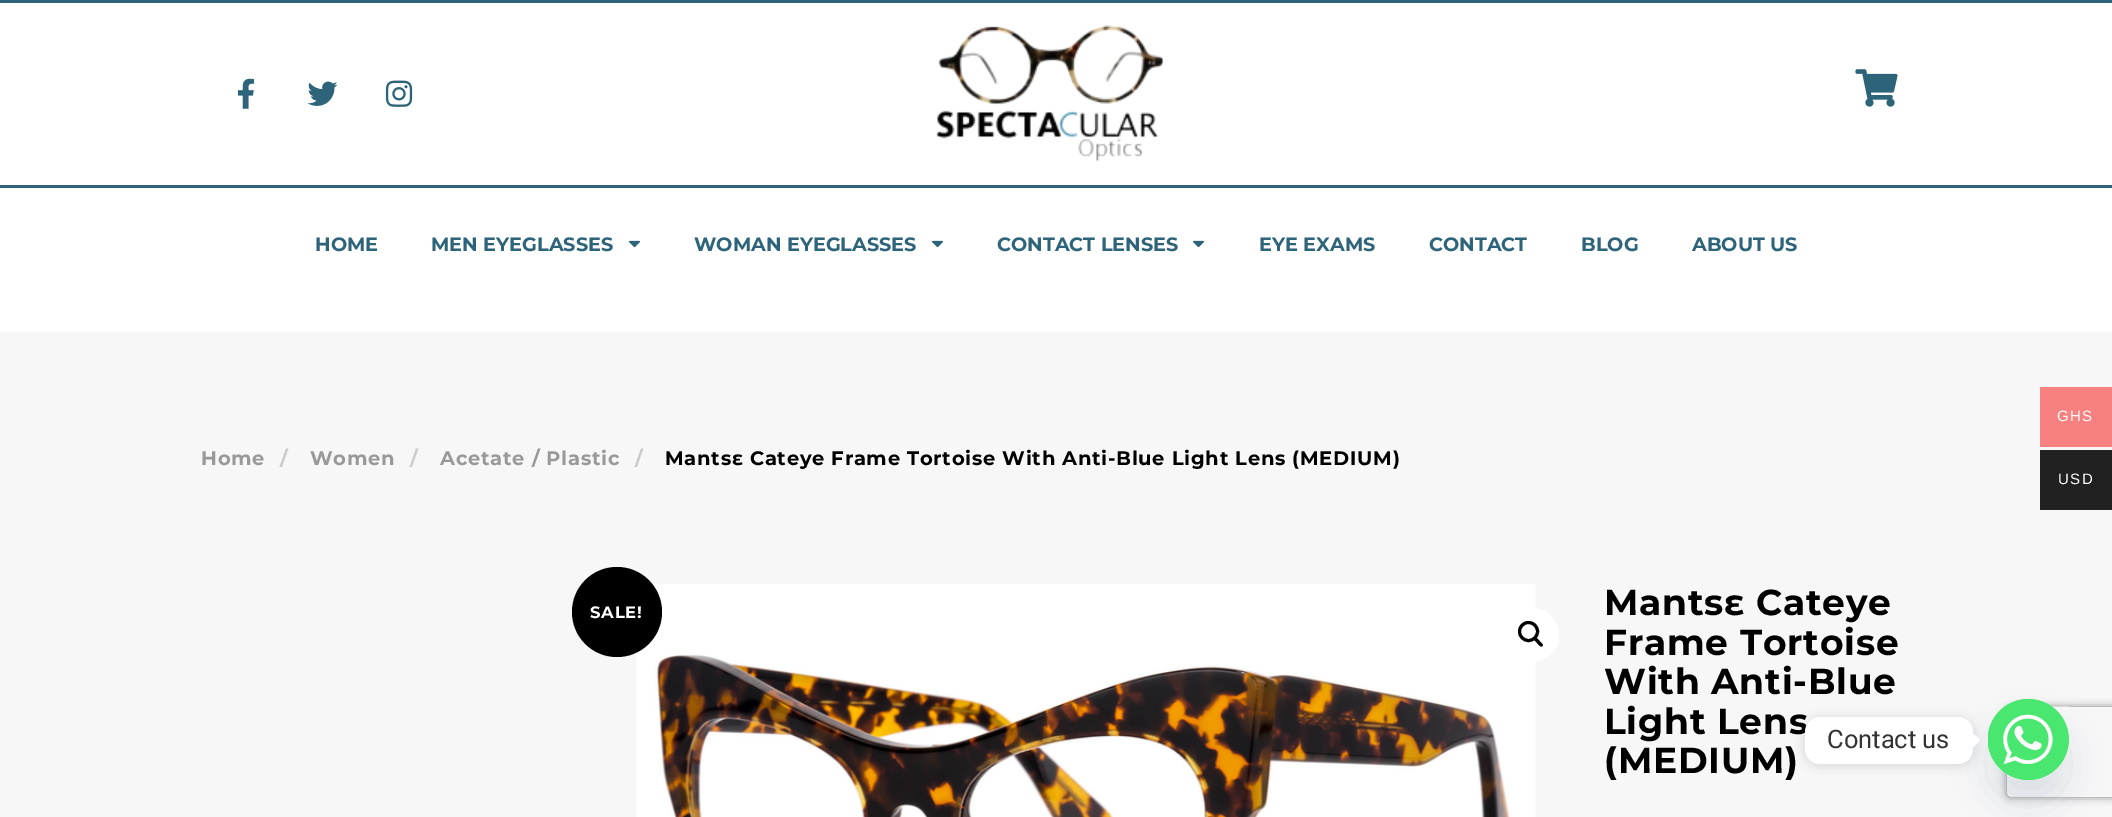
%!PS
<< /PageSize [2112 817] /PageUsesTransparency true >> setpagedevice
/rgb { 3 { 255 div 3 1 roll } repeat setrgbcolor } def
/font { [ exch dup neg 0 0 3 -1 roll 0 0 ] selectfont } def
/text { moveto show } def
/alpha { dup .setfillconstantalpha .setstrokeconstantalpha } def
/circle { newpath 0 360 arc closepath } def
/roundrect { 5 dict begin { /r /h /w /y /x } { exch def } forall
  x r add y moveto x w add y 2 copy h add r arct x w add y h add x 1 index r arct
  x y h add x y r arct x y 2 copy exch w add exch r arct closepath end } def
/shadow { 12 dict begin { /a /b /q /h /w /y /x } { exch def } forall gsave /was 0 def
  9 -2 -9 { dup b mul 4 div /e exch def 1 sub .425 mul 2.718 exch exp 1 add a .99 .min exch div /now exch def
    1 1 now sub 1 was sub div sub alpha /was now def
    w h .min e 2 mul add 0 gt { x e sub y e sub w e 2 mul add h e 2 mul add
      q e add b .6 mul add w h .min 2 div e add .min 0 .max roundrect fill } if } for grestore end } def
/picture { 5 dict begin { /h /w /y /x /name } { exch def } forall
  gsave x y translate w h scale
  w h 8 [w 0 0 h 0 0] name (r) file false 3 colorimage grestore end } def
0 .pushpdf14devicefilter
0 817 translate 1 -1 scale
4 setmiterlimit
255 255 255 rgb
0 0 2112 817 rectfill
45 100 121 rgb
0 0 2112 3 rectfill
(img_01.rgb) 237 78 18 31 picture
(img_02.rgb) 307 81 31 25 picture
(img_03.rgb) 385 80 28 27 picture
(img_04.rgb) 936 25 228 137 picture
(img_05.rgb) 1855 69 43 38 picture
0 185 2112 3 rectfill
(img_06.rgb) 628 240 12 8 picture
(img_06.rgb) 931 240 12 8 picture
(img_06.rgb) 1192 240 12 8 picture
247 247 247 rgb
0 332 2112 485 rectfill
(img_07.rgb) 636 584 900 233 picture
0 0 0 rgb
617 612 45 circle fill
255 255 255 rgb
1532 635 27 circle fill
0 0 0 rgb
3 setlinewidth
1528.5 631.5 9 circle stroke
1534 638 moveto 1.5 -2 4.5 2 5.5 3 rcurveto 0.5 1 4.5 3.5 3 5 rcurveto -1.5 2 -4.5 -2 -5.5 -3 rcurveto -0.5 -1 -4.5 -3.5 -3 -5 rcurveto closepath fill
247 128 128 rgb
2040 387 72 60 rectfill
33 33 33 rgb
2040 450 72 60 rectfill
73 104 126 rgb
1988 723 81 81 40.5 18 0.16 shadow
gsave
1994 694 moveto 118 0 rlineto 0 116 rlineto -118 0 rlineto closepath 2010 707 moveto 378 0 rlineto 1.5 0 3 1.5 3 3 rcurveto 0 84 rlineto 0 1.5 -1.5 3 -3 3 rcurveto -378 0 rlineto -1.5 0 -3 -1.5 -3 -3 rcurveto 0 -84 rlineto 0 -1.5 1.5 -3 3 -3 rcurveto closepath eoclip newpath
128 128 128 rgb
2007 707 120 90 3 4 1 shadow
grestore
73 230 112 rgb
2028.5 739.5 40.5 circle fill
(img_08.rgb) 1988 699 81 81 picture
0 0 0 rgb
1805 719 168 46 15 6 0.15 shadow
/Montserrat-Bold 19.25 font
45 100 121 rgb
(HOME) 315 251 text
(MEN EYEGLASSES) 431 251 text
(WOMAN EYEGLASSES) 694 251 text
(CONTACT LENSES) 997 251 text
(EYE EXAMS) 1259 251 text
(CONTACT) 1429 251 text
(BLOG) 1581 251 text
(ABOUT US) 1692 251 text
/Montserrat-Bold 19.5 font
153 153 153 rgb
201 465 moveto 0.75 0 (Home) ashow
204 204 204 rgb
280 465 moveto 0.75 0 (/) ashow
153 153 153 rgb
310 465 moveto 0.75 0 (Women) ashow
204 204 204 rgb
410 465 moveto 0.75 0 (/) ashow
153 153 153 rgb
440 465 moveto 0.75 0 (Acetate / Plastic) ashow
204 204 204 rgb
635 465 moveto 0.75 0 (/) ashow
0 0 0 rgb
665 465 moveto 0.75 0 (Mantsɛ Cateye Frame Tortoise With Anti-Blue Light Lens \(MEDIUM\)) ashow
/Montserrat-Bold 16.5 font
255 255 255 rgb
590 618 moveto 0.75 0 (SALE!) ashow
/Montserrat-Bold 36 font
0 0 0 rgb
1604 615 moveto 0.75 0 (Mantsɛ Cateye) ashow
1604 655 moveto 0.75 0 (Frame Tortoise) ashow
1604 694 moveto 0.75 0 (With Anti-Blue) ashow
1604 734 moveto 0.75 0 (Light Lens) ashow
1604 773 moveto 0.75 0 (\(MEDIUM\)) ashow
/LiberationSans-Regular 15 font
255 255 255 rgb
2057 421 moveto 1.5 0 (GHS) ashow
2058 484 moveto 1.5 0 (USD) ashow
1805 717 168 47 15 roundrect fill
/Roboto-Regular 25.5 font
51 51 51 rgb
(Contact us) 1827 748 text
255 255 255 rgb
1972.5 748 moveto 0 -15 rlineto 7.5 7 rlineto closepath fill
.poppdf14devicefilter showpage
